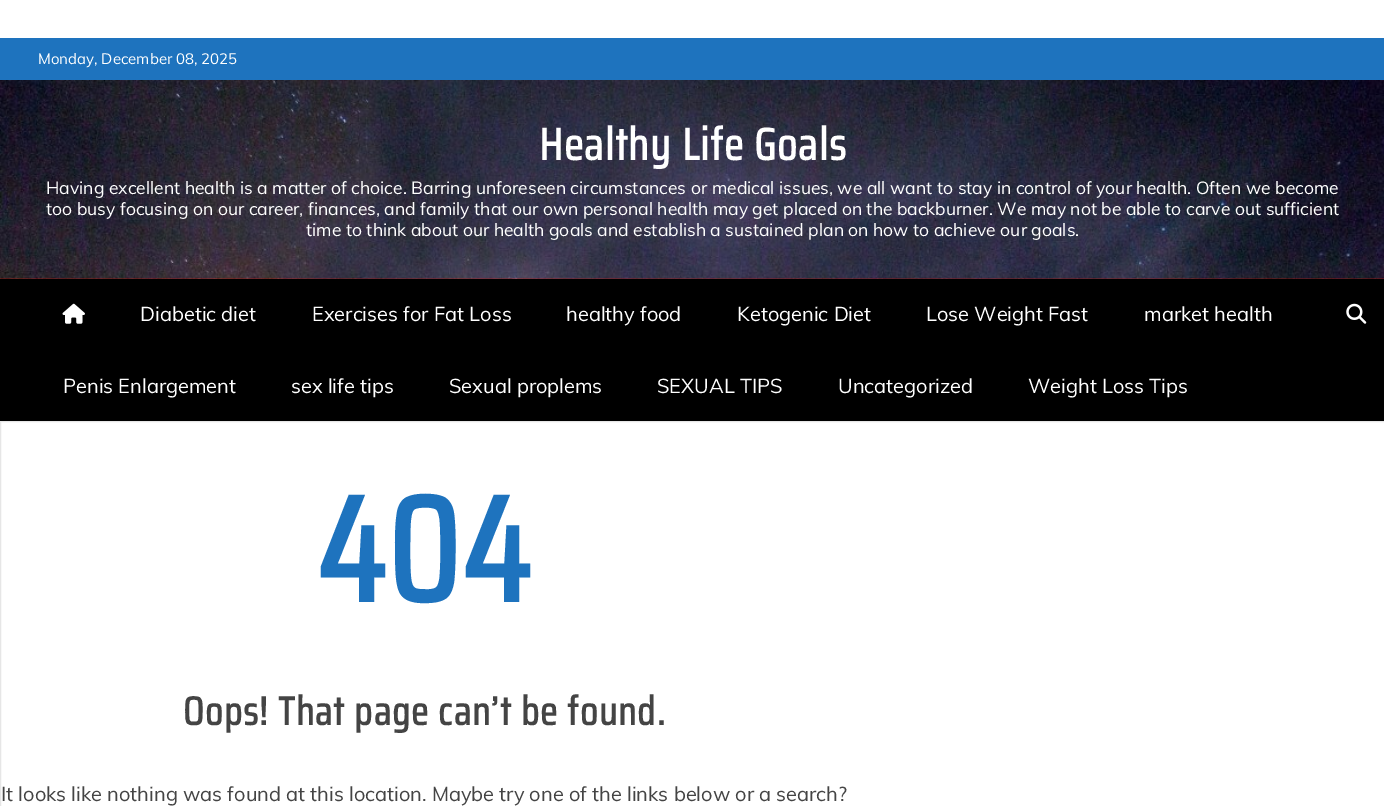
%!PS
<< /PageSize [1384 806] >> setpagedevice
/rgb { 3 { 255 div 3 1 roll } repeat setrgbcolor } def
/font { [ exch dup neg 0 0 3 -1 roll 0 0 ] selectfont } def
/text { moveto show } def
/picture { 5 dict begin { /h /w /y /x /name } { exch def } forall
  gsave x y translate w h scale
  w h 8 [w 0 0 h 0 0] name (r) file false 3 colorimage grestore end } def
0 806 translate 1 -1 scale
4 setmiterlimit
255 255 255 rgb
0 0 1384 806 rectfill
30 115 190 rgb
0 38 1384 42 rectfill
(img_01.rgb) 0 80 1384 199 picture
0 0 0 rgb
0 279 1384 142 rectfill
(img_02.rgb) 62 303 23 21 picture
(img_03.rgb) 1346 303 21 21 picture
230 230 230 rgb
0.5 421.5 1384 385 rectstroke
/Muli-Regular 15 font
255 255 255 rgb
(Monday, December 08, 2025) 38 64 text
/SairaCondensed-Bold 45 font
539 160 moveto 1.25 0 (Healthy Life Goals) ashow
/Muli-Regular 17.5 font
(Having excellent health is a matter of choice. Barring unforeseen circumstances or medical issues, we all want to stay in control of your health. Often we become) 46 194 text
(too busy focusing on our career, finances, and family that our own personal health may get placed on the backburner. We may not be able to carve out sufficient) 46 215 text
(time to think about our health goals and establish a sustained plan on how to achieve our goals.) 306 236 text
/Muli-Regular 20 font
(Diabetic diet) 140 321 text
(Exercises for Fat Loss) 312 321 text
(healthy food) 566 321 text
(Ketogenic Diet) 737 321 text
(Lose Weight Fast) 926 321 text
(market health) 1144 321 text
(Penis Enlargement) 63 393 text
(sex life tips) 291 393 text
(Sexual proplems) 449 393 text
(SEXUAL TIPS) 657 393 text
(Uncategorized) 838 393 text
(Weight Loss Tips) 1028 393 text
/SairaCondensed-Bold 150 font
30 115 190 rgb
316 602 moveto 1.25 0 (404) ashow
/SairaCondensed-Bold 40 font
68 68 68 rgb
183 725 moveto 1.25 0 (Oops! That page can’t be found.) ashow
/Muli-Regular 20 font
(It looks like nothing was found at this location. Maybe try one of the links below or a search?) 1 801 text
showpage
